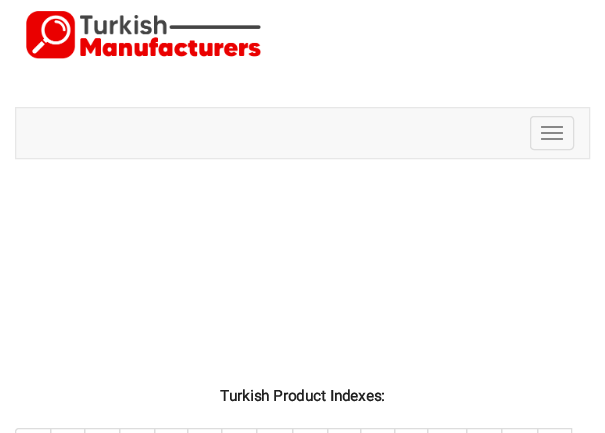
%!PS
<< /PageSize [605 433] >> setpagedevice
/rgb { 3 { 255 div 3 1 roll } repeat setrgbcolor } def
/font { [ exch dup neg 0 0 3 -1 roll 0 0 ] selectfont } def
/text { moveto show } def
/roundrect { 5 dict begin { /r /h /w /y /x } { exch def } forall
  x r add y moveto x w add y 2 copy h add r arct x w add y h add x 1 index r arct
  x y h add x y r arct x y 2 copy exch w add exch r arct closepath end } def
/picture { 5 dict begin { /h /w /y /x /name } { exch def } forall
  gsave x y translate w h scale
  w h 8 [w 0 0 h 0 0] name (r) file false 3 colorimage grestore end } def
0 433 translate 1 -1 scale
4 setmiterlimit
255 255 255 rgb
0 0 605 433 rectfill
(img_01.rgb) 26 11 235 48 picture
248 248 248 rgb
15.5 107.5 moveto 574 0 rlineto 0 51 rlineto -574 0 rlineto closepath gsave fill grestore
231 231 231 rgb
stroke
221 221 221 rgb
530.5 116.5 43 33 3.5 roundrect stroke
136 136 136 rgb
541 126 22 2 1 roundrect fill
541 132 22 2 1 roundrect fill
541 138 22 2 1 roundrect fill
221 221 221 rgb
19 428.5 moveto 31.5 0 rlineto 0 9 rlineto -31.5 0 rlineto -2 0 -3.5 -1.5 -3.5 -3.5 rcurveto 0 -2 rlineto 0 -2 1.5 -3.5 3.5 -3.5 rcurveto closepath stroke
255 255 255 rgb
50 429 1 4 rectfill
221 221 221 rgb
50.5 428.5 34 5 rectstroke
255 255 255 rgb
84 429 1 4 rectfill
221 221 221 rgb
84.5 428.5 35 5 rectstroke
255 255 255 rgb
119 429 1 4 rectfill
221 221 221 rgb
119.5 428.5 35 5 rectstroke
255 255 255 rgb
154 429 1 4 rectfill
221 221 221 rgb
154.5 428.5 33 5 rectstroke
255 255 255 rgb
187 429 1 4 rectfill
221 221 221 rgb
187.5 428.5 34 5 rectstroke
255 255 255 rgb
221 429 1 4 rectfill
221 221 221 rgb
221.5 428.5 35 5 rectstroke
255 255 255 rgb
256 429 1 4 rectfill
221 221 221 rgb
256.5 428.5 36 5 rectstroke
255 255 255 rgb
292 429 1 4 rectfill
221 221 221 rgb
292.5 428.5 35 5 rectstroke
255 255 255 rgb
327 429 1 4 rectfill
221 221 221 rgb
327.5 428.5 33 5 rectstroke
255 255 255 rgb
360 429 1 4 rectfill
221 221 221 rgb
360.5 428.5 34 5 rectstroke
255 255 255 rgb
394 429 1 4 rectfill
221 221 221 rgb
394.5 428.5 33 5 rectstroke
255 255 255 rgb
427 429 1 4 rectfill
221 221 221 rgb
427.5 428.5 39 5 rectstroke
255 255 255 rgb
466 429 1 4 rectfill
221 221 221 rgb
466.5 428.5 35 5 rectstroke
255 255 255 rgb
501 429 1 4 rectfill
221 221 221 rgb
501.5 428.5 36 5 rectstroke
255 255 255 rgb
537 429 1 4 rectfill
221 221 221 rgb
537.5 428.5 34 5 rectstroke
/Roboto-Bold 15 font
33 33 33 rgb
(Turkish Product Indexes:) 220 401 text
showpage
